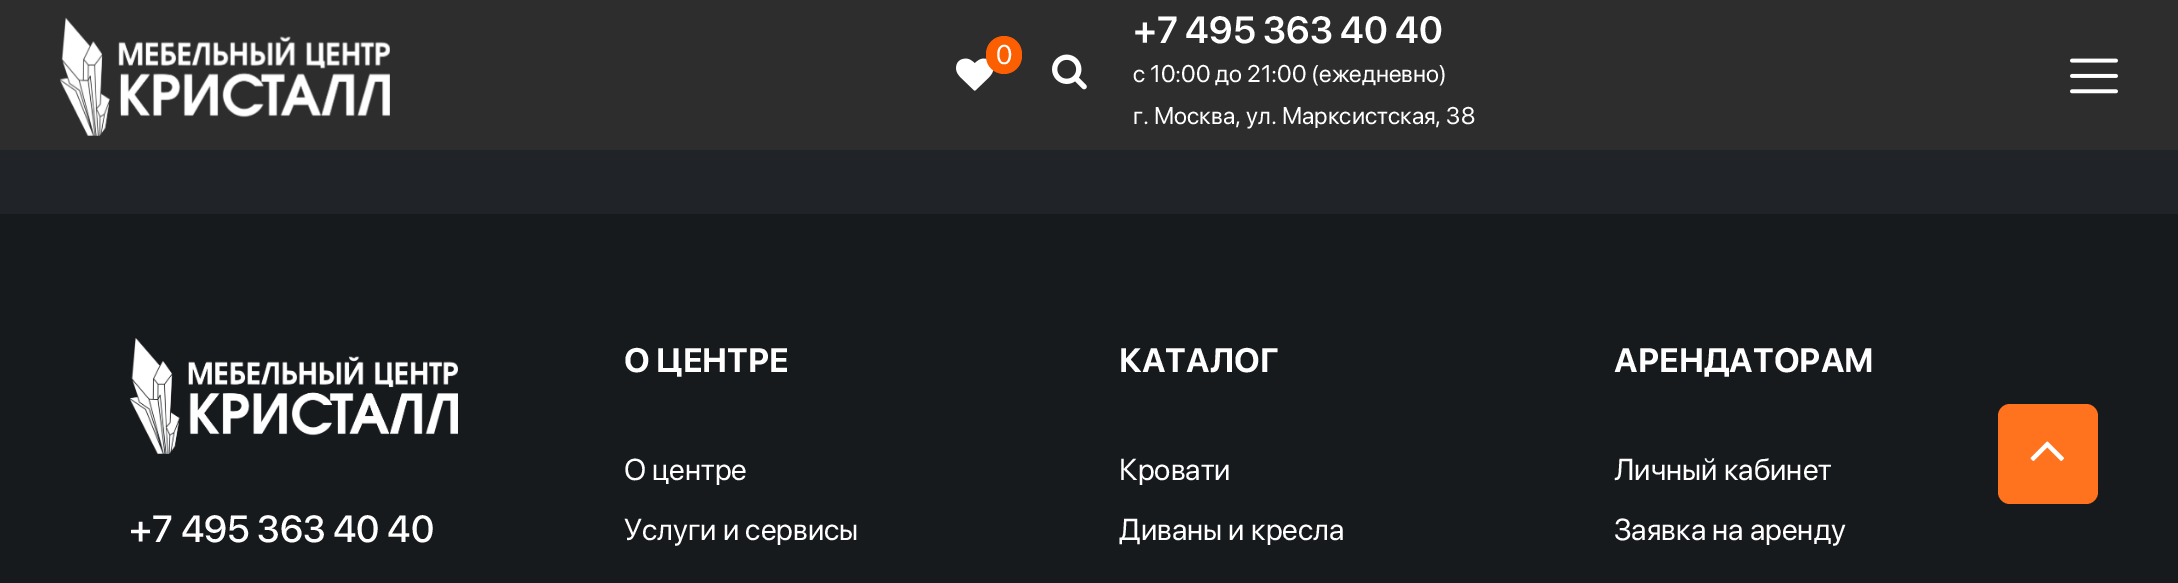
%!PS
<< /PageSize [2178 583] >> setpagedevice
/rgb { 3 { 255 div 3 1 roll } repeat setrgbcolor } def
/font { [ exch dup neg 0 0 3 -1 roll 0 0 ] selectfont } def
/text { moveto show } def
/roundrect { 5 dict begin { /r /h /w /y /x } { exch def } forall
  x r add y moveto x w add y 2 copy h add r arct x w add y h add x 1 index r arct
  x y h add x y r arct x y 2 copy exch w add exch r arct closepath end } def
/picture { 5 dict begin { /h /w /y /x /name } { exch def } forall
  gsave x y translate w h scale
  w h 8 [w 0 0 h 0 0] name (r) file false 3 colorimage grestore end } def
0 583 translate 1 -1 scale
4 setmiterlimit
32 35 40 rgb
0 0 2178 583 rectfill
45 45 45 rgb
0 0 2178 150 rectfill
(img_01.rgb) 60 17 330 119 picture
(img_02.rgb) 956 58 38 33 picture
252 95 1 rgb
986 36 36 38 18 roundrect fill
(img_03.rgb) 1052 54 35 36 picture
(img_04.rgb) 2070 58 48 36 picture
23 26 29 rgb
0 214 2178 369 rectfill
(img_05.rgb) 130 338 328 116 picture
255 114 30 rgb
1998 404 100 100 12 roundrect fill
(img_06.rgb) 2030 441 34 20 picture
/SFProDisplay-Regular 27 font
255 255 255 rgb
(0) 996 64 text
/SFProDisplay-SemiBold 37.5 font
(+7 495 363 40 40) 1133 43 text
/SFProDisplay-Regular 24 font
(c 10:00 до 21:00 \(ежедневно\)) 1133 82 text
(г. Москва, ул. Марксистская, 38) 1133 124 text
/SFProDisplay-Medium 37.5 font
(+7 495 363 40 40) 129 542 text
/SFProDisplay-Bold 33.75 font
(О ЦЕНТРЕ) 624 372 text
/SFProDisplay-Regular 30 font
(О центре) 624 480 text
(Услуги и сервисы) 624 540 text
/SFProDisplay-Bold 33.75 font
(КАТАЛОГ) 1119 372 text
/SFProDisplay-Regular 30 font
(Кровати) 1119 480 text
(Диваны и кресла) 1119 540 text
/SFProDisplay-Bold 33.75 font
(АРЕНДАТОРАМ) 1614 372 text
/SFProDisplay-Regular 30 font
(Личный кабинет) 1614 480 text
(Заявка на аренду) 1614 540 text
showpage
